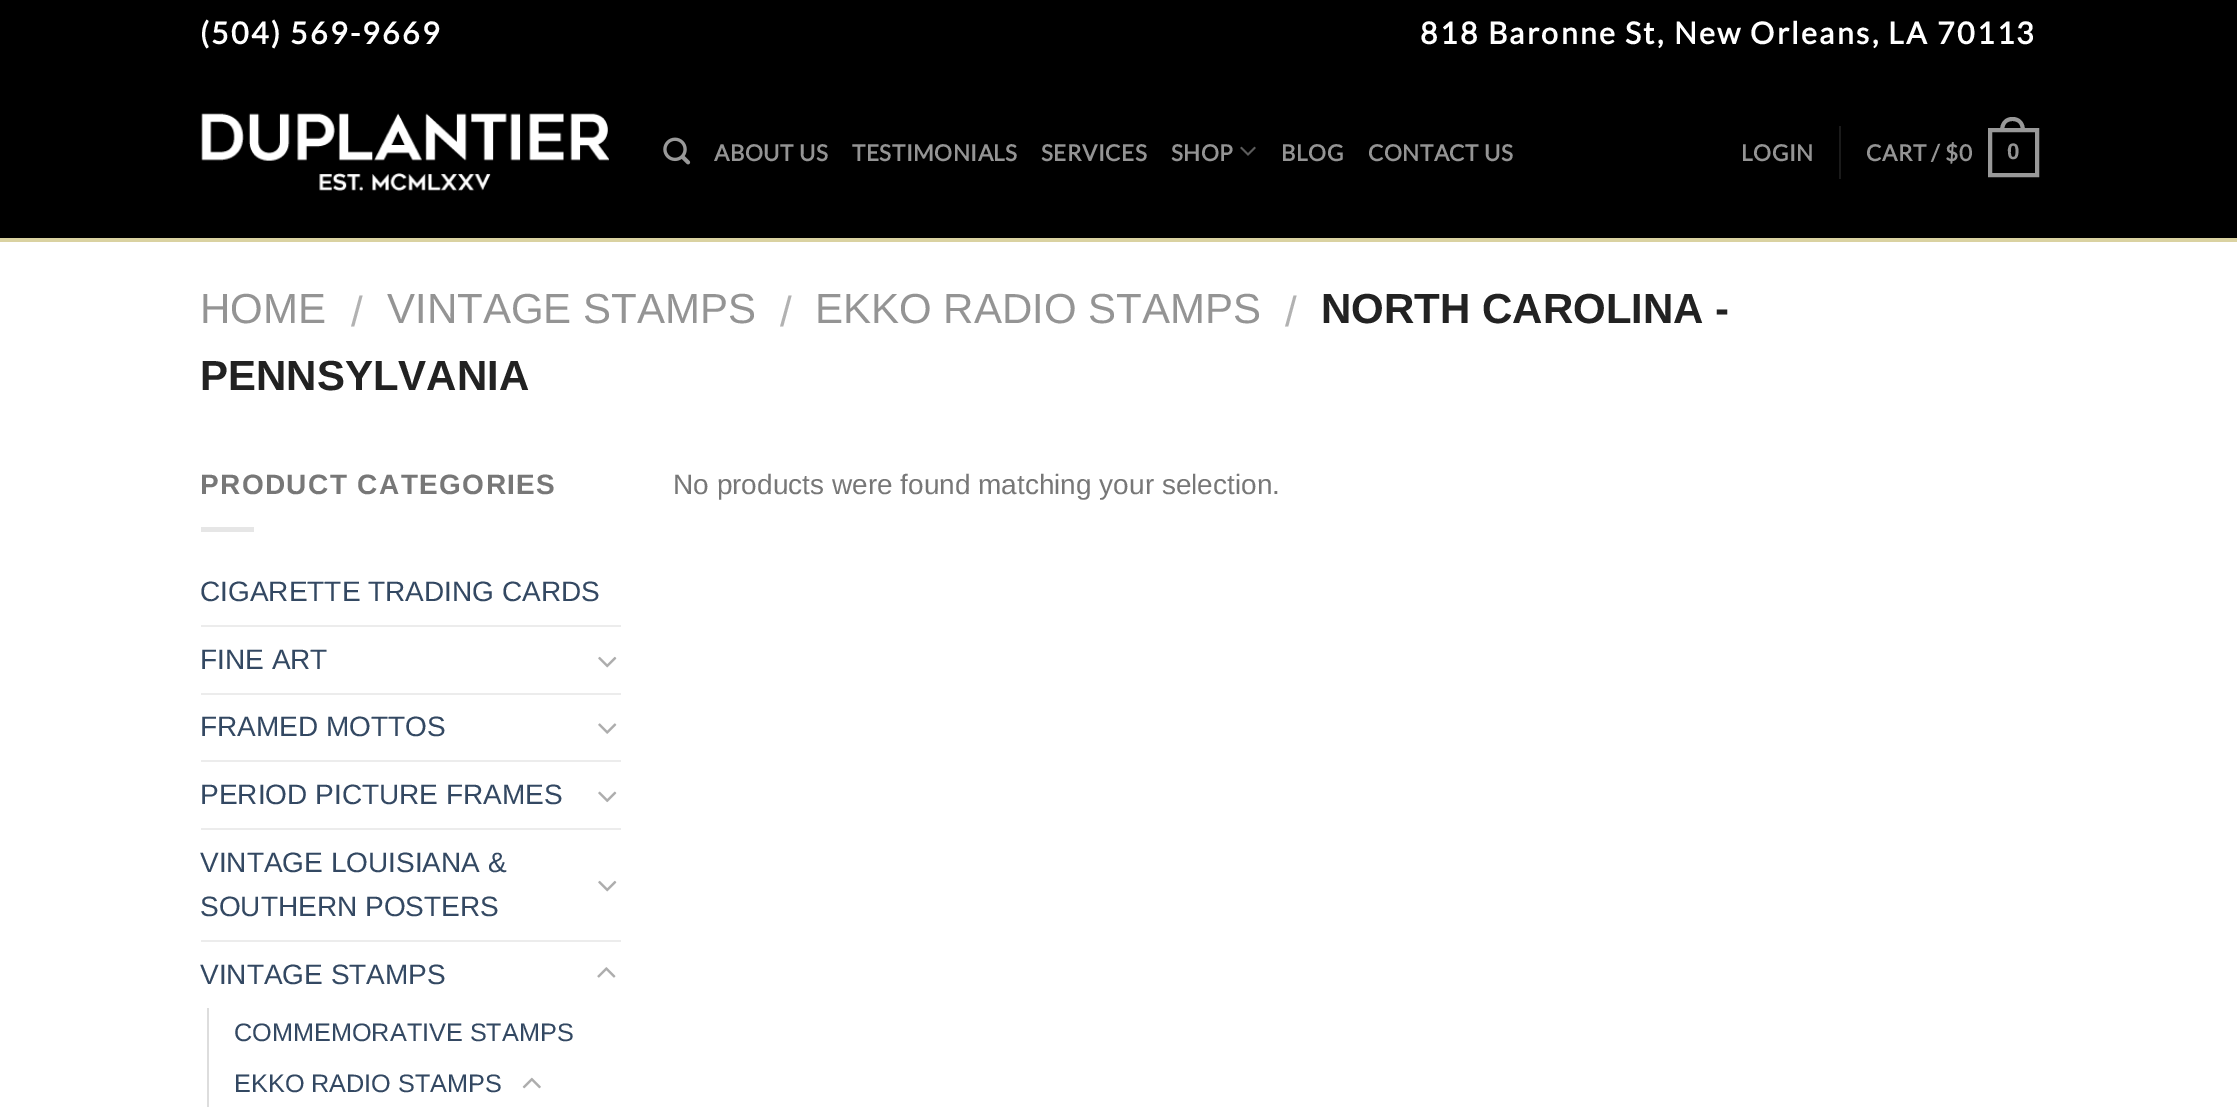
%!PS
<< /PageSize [2237 1107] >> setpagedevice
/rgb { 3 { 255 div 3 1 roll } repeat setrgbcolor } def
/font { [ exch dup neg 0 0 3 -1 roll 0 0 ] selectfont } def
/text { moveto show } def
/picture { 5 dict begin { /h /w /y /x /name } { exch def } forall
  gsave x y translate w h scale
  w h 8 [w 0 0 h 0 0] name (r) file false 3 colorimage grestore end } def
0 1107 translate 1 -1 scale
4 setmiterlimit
255 255 255 rgb
0 0 2237 1107 rectfill
0 0 0 rgb
0 0 2237 238 rectfill
218 210 161 rgb
0 238 2237 4 rectfill
(img_01.rgb) 201 113 408 78 picture
(img_02.rgb) 663 137 28 28 picture
(img_03.rgb) 1240 146 16 10 picture
26 26 26 rgb
1839 126 2 53 rectfill
153 153 153 rgb
4 setlinewidth
1990 130 47 45 rectstroke
2012.5 117 moveto 8.5 0 12.5 6.5 12.5 14 rcurveto -25 0 rlineto 0 -7.5 4 -14 12.5 -14 rcurveto closepath 2012.5 121 moveto 6.5 0 8.5 4.5 8.5 10 rcurveto -17 0 rlineto 0 -5.5 2 -10 8.5 -10 rcurveto closepath eofill
230 230 230 rgb
201 527 53 5 rectfill
236 236 236 rgb
201 625 420 2 rectfill
(img_04.rgb) 598 656 19 12 picture
201 693 420 2 rectfill
(img_05.rgb) 598 723 19 11 picture
201 760 420 2 rectfill
(img_06.rgb) 598 791 19 12 picture
201 828 420 2 rectfill
(img_04.rgb) 598 880 19 12 picture
201 940 420 2 rectfill
(img_07.rgb) 597 967 19 11 picture
221 221 221 rgb
207 1008 2 99 rectfill
(img_08.rgb) 522 1077 19 12 picture
/Lato-Bold 30.3 font
255 255 255 rgb
200 44 moveto 2.25 0 (\(504\) 569-9669) ashow
1420 44 moveto 2.25 0 (818 Baronne St, New Orleans, LA 70113) ashow
/Lato-Bold 22.5 font
148 148 148 rgb
714 161 moveto 0.5 0 (ABOUT US) ashow
852 161 moveto 0.5 0 (TESTIMONIALS) ashow
1041 161 moveto 0.5 0 (SERVICES) ashow
1171 161 moveto 0.5 0 (SHOP) ashow
1281 161 moveto 0.5 0 (BLOG) ashow
1368 161 moveto 0.5 0 (CONTACT US) ashow
1741 161 moveto 0.5 0 (LOGIN) ashow
1866 161 moveto 0.5 0 (CART / $0) ashow
/LiberationSans-Bold 22.5 font
2007 159 moveto 0.5 0 (0) ashow
/LiberationSans-Regular 42 font
(HOME) 200 323 text
178 178 178 rgb
(/) 351 326 text
148 148 148 rgb
(VINTAGE STAMPS) 387 323 text
178 178 178 rgb
(/) 780 326 text
148 148 148 rgb
(EKKO RADIO STAMPS) 815 323 text
178 178 178 rgb
(/) 1285 326 text
/LiberationSans-Bold 42 font
34 34 34 rgb
(NORTH CAROLINA -) 1321 323 text
(PENNSYLVANIA) 200 390 text
/LiberationSans-Bold 28 font
119 119 119 rgb
200 494 moveto 1.4 0 (PRODUCT CATEGORIES) ashow
/LiberationSans-Regular 28 font
51 72 98 rgb
(CIGARETTE TRADING CARDS) 200 601 text
(FINE ART) 200 669 text
(FRAMED MOTTOS) 200 736 text
(PERIOD PICTURE FRAMES) 200 804 text
(VINTAGE LOUISIANA &) 200 872 text
(SOUTHERN POSTERS) 200 916 text
(VINTAGE STAMPS) 200 984 text
/LiberationSans-Regular 25.25 font
(COMMEMORATIVE STAMPS) 234 1041 text
(EKKO RADIO STAMPS) 234 1092 text
/LiberationSans-Regular 28 font
119 119 119 rgb
(No products were found matching your selection.) 673 494 text
showpage
